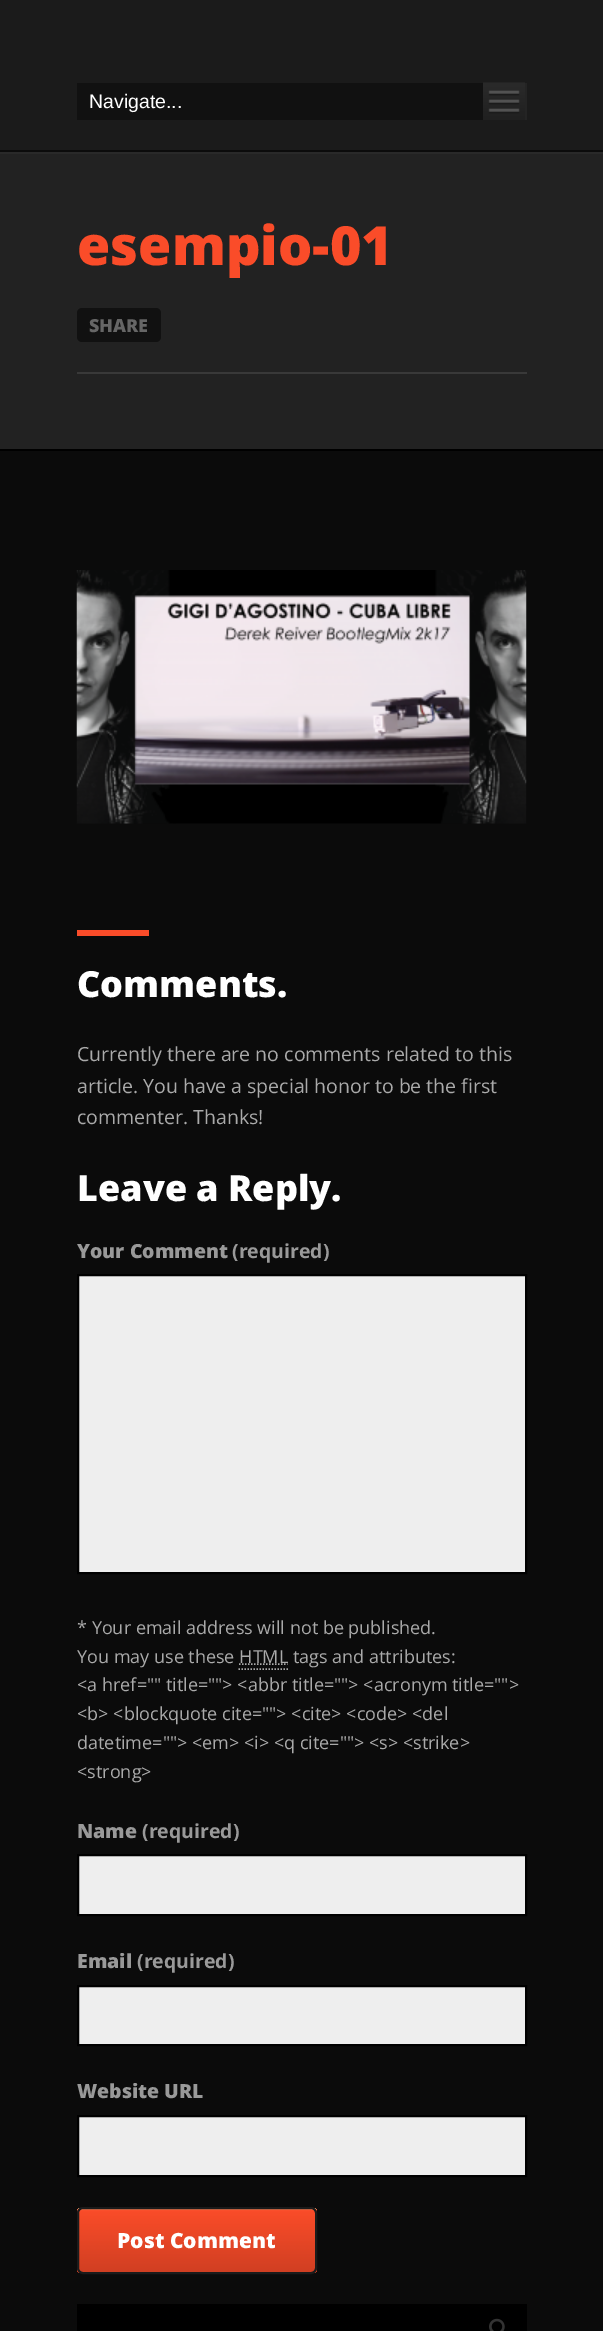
%!PS
<< /PageSize [603 2331] >> setpagedevice
/rgb { 3 { 255 div 3 1 roll } repeat setrgbcolor } def
/font { [ exch dup neg 0 0 3 -1 roll 0 0 ] selectfont } def
/text { moveto show } def
/roundrect { 5 dict begin { /r /h /w /y /x } { exch def } forall
  x r add y moveto x w add y 2 copy h add r arct x w add y h add x 1 index r arct
  x y h add x y r arct x y 2 copy exch w add exch r arct closepath end } def
/picture { 5 dict begin { /h /w /y /x /name } { exch def } forall
  gsave x y translate w h scale
  w h 8 [w 0 0 h 0 0] name (r) file false 3 colorimage grestore end } def
0 2331 translate 1 -1 scale
4 setmiterlimit
11 11 11 rgb
0 0 603 2331 rectfill
27 27 27 rgb
0 0 603 150 rectfill
36 36 36 rgb
525 83 2 37 rectfill
17 17 17 rgb
77 83 406 37 rectfill
(img_01.rgb) 483 82 42 38 picture
34 34 34 rgb
0 154 603 295 rectfill
41 41 41 rgb
0 152 603 2 rectfill
0 0 0 rgb
0 449 603 2 rectfill
17 17 17 rgb
77 308 84 34 5 roundrect fill
57 57 57 rgb
77 372 450 2 rectfill
(img_02.rgb) 76 570 451 254 picture
250 76 41 rgb
77 930 72 6 rectfill
238 238 238 rgb
78 1275 moveto 448 0 rlineto 0 298 rlineto -448 0 rlineto closepath gsave fill grestore
0 0 0 rgb
2 setlinewidth
stroke
170 170 170 rgb
1.5 setlinewidth
[1.5 1.5] 0 setdash
238.5 1669 moveto 49.5 0 rlineto 239 1664 moveto 48.5 0 rlineto stroke
238 238 238 rgb
78 1855 moveto 448 0 rlineto 0 60 rlineto -448 0 rlineto closepath gsave fill grestore
0 0 0 rgb
2 setlinewidth
[] 0 setdash
stroke
238 238 238 rgb
78 1986 moveto 448 0 rlineto 0 59 rlineto -448 0 rlineto closepath gsave fill grestore
0 0 0 rgb
stroke
238 238 238 rgb
78 2116 moveto 448 0 rlineto 0 60 rlineto -448 0 rlineto closepath gsave fill grestore
0 0 0 rgb
stroke
gsave
77 2207 240 67 6 roundrect clip newpath
gsave 77 2208 moveto 240 0 rlineto 0 65 rlineto -240 0 rlineto closepath clip newpath
<< /ShadingType 2 /ColorSpace /DeviceRGB /Coords [197 2208 197 2273] /Extend [true true] /Function << /FunctionType 3 /Domain [0 1] /Functions [<< /FunctionType 2 /Domain [0 1] /C0 [1 0.702 0.486] /C1 [0.98 0.298 0.161] /N 1 >> << /FunctionType 2 /Domain [0 1] /C0 [0.98 0.298 0.161] /C1 [0.816 0.247 0.133] /N 1 >>] /Bounds [0.04] /Encode [0 1 0 1] >> >> shfill grestore
grestore
27 27 27 rgb
78 2208 238 65 5 roundrect stroke
0 0 0 rgb
77 2304 450 27 rectfill
(img_03.rgb) 489 2318 16 13 picture
/LiberationSans-Regular 19.5 font
255 255 255 rgb
(Navigate...) 89 108 text
/OpenSans-ExtraBold 54 font
250 76 41 rgb
(esempio-01) 77 265 text
/OpenSans-ExtraBold 18 font
102 102 102 rgb
(SHARE) 89 332 text
/OpenSans-ExtraBold 36 font
255 255 255 rgb
(Comments.) 77 997 text
/OpenSans-Regular 19.5 font
170 170 170 rgb
(Currently there are no comments related to this) 77 1061 text
(article. You have a special honor to be the first) 77 1093 text
(commenter. Thanks!) 77 1124 text
/OpenSans-ExtraBold 36 font
255 255 255 rgb
(Leave a Reply.) 77 1201 text
/OpenSans-ExtraBold 19.5 font
153 153 153 rgb
(Your Comment) 77 1258 text
/OpenSans-Bold 19.5 font
(\(required\)) 232 1258 text
/OpenSans-Regular 18 font
170 170 170 rgb
(* Your email address will not be published.) 77 1634 text
(You may use these HTML tags and attributes:) 77 1663 text
(<a href="" title=""> <abbr title=""> <acronym title="">) 77 1691 text
(<b> <blockquote cite=""> <cite> <code> <del) 77 1720 text
(datetime=""> <em> <i> <q cite=""> <s> <strike>) 77 1749 text
(<strong>) 77 1778 text
/OpenSans-ExtraBold 19.5 font
153 153 153 rgb
(Name) 77 1838 text
/OpenSans-Bold 19.5 font
(\(required\)) 142 1838 text
/OpenSans-ExtraBold 19.5 font
(Email) 77 1968 text
/OpenSans-Bold 19.5 font
(\(required\)) 137 1968 text
/OpenSans-ExtraBold 19.5 font
(Website URL) 77 2098 text
/OpenSans-ExtraBold 21 font
255 255 255 rgb
(Post Comment) 117 2248 text
showpage
